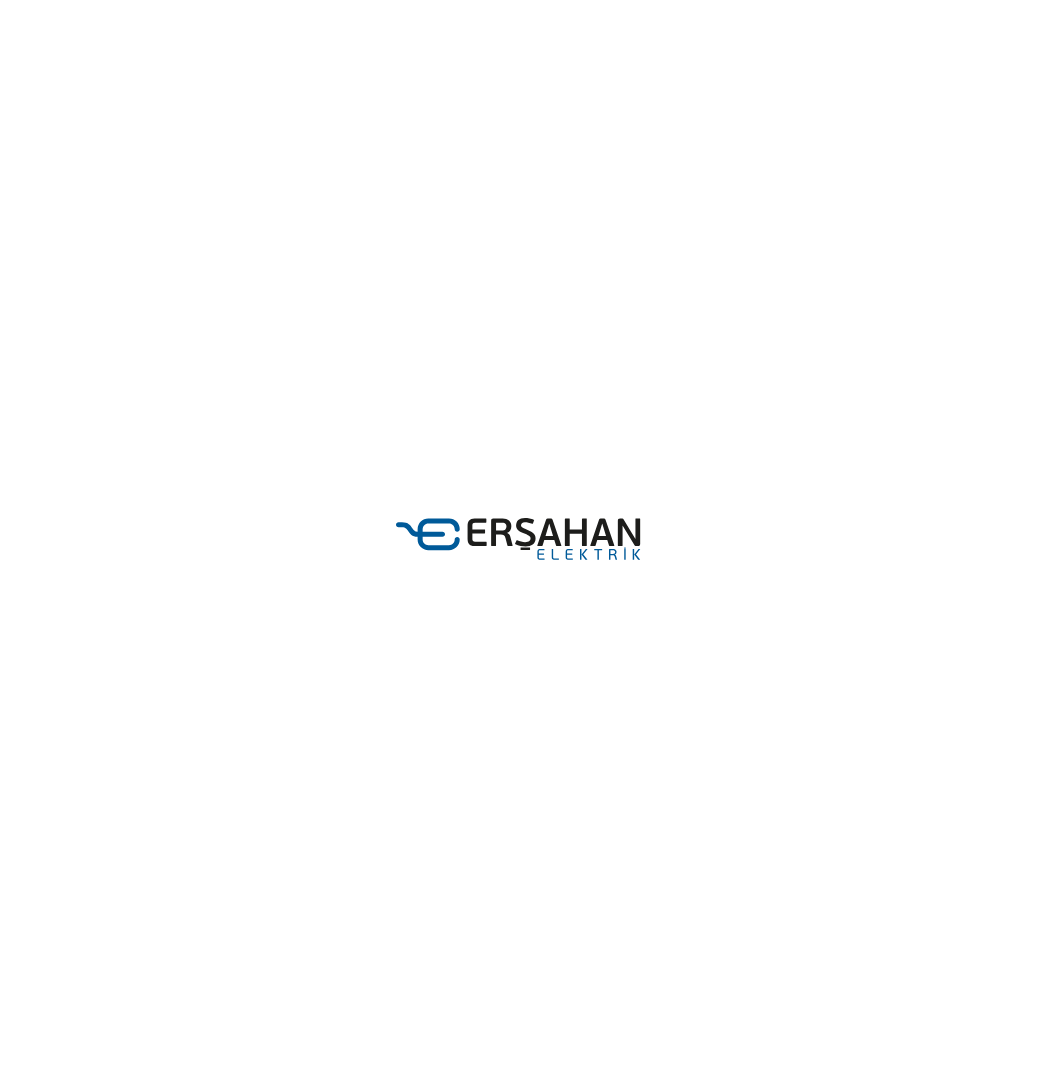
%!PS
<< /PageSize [1039 1077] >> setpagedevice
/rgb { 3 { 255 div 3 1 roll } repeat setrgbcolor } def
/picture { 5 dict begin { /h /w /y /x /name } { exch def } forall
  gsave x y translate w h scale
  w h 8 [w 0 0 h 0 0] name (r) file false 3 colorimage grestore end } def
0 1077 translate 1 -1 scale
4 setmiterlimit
255 255 255 rgb
0 0 1039 1077 rectfill
(img_01.rgb) 396 518 245 42 picture
showpage
